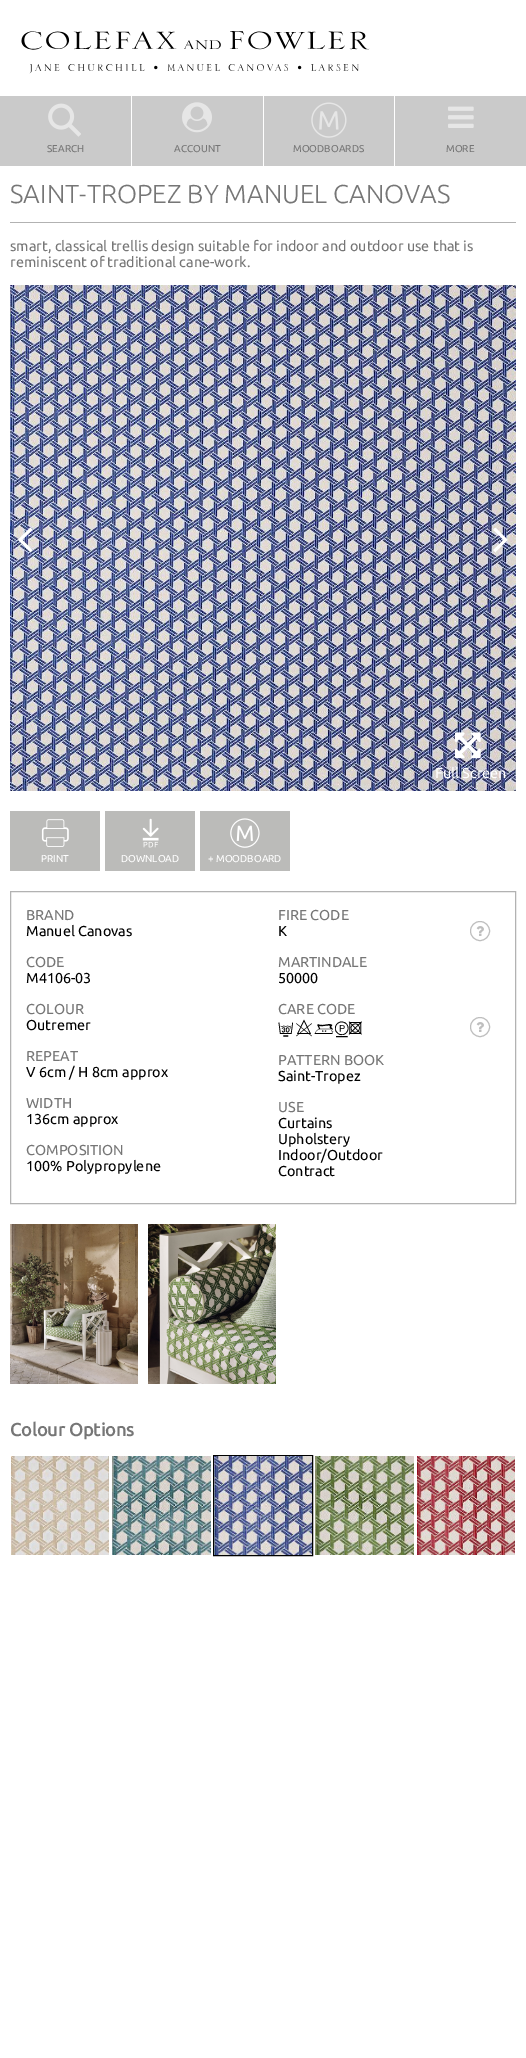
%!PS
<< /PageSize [526 2058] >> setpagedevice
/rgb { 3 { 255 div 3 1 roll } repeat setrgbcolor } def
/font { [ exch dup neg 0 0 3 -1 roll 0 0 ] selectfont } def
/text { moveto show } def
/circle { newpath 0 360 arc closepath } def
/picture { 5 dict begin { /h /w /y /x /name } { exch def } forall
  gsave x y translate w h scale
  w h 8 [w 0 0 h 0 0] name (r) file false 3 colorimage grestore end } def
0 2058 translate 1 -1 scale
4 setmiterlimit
255 255 255 rgb
0 0 526 2058 rectfill
(img_01.rgb) 21 31 349 43 picture
202 202 202 rgb
0 96 526 70 rectfill
(img_02.rgb) 48 103 33 34 picture
255 255 255 rgb
131 96 1 70 rectfill
(img_03.rgb) 182 102 30 31 picture
263 96 1 70 rectfill
(img_04.rgb) 311 102 36 36 picture
394 96 1 70 rectfill
(img_05.rgb) 448 106 26 22 picture
178 178 178 rgb
10 222 506 1 rectfill
(img_08.rgb) 10 285 506 506 picture
(img_06.rgb) 18 527 15 25 picture
(img_07.rgb) 493 527 15 25 picture
(img_09.rgb) 455 732 26 27 picture
187 187 185 rgb
10 811 90 60 rectfill
(img_10.rgb) 41 819 28 28 picture
105 811 90 60 rectfill
(img_11.rgb) 142 818 17 30 picture
200 811 90 60 rectfill
(img_12.rgb) 230 818 30 30 picture
178 178 178 rgb
10.5 891.5 505 312 rectstroke
190 190 190 rgb
480 931 9.5 circle stroke
(img_13.rgb) 476 926 8 10 picture
480 1027 9.5 circle stroke
(img_13.rgb) 476 1022 8 10 picture
(img_14.rgb) 10 1224 128 160 picture
(img_15.rgb) 148 1224 128 160 picture
(img_16.rgb) 11 1456 98 99 picture
(img_17.rgb) 112 1456 99 99 picture
0 0 0 rgb
213.5 1455.5 99 100 rectstroke
(img_18.rgb) 214 1456 98 99 picture
(img_19.rgb) 315 1456 99 99 picture
(img_20.rgb) 417 1456 98 99 picture
/Ubuntu-Regular 10 font
118 118 118 rgb
(SEARCH) 47 152 text
(ACCOUNT) 174 152 text
(MOODBOARDS) 293 152 text
(MORE) 446 152 text
/Ubuntu-Light 26 font
(SAINT-TROPEZ BY MANUEL CANOVAS) 10 203 text
/Ubuntu-Regular 14.4 font
(smart, classical trellis design suitable for indoor and outdoor use that is) 10 251 text
(reminiscent of traditional cane-work.) 10 267 text
255 255 255 rgb
(Full Screen) 435 778 text
/Ubuntu-Regular 10 font
(PRINT) 41 862 text
(DOWNLOAD) 121 862 text
(+ MOODBOARD) 208 862 text
/Ubuntu-Regular 14.4 font
118 118 118 rgb
(BRAND) 26 920 text
0 0 0 rgb
(Manuel Canovas) 26 936 text
118 118 118 rgb
(FIRE CODE) 278 920 text
0 0 0 rgb
(K) 278 936 text
118 118 118 rgb
(CODE) 26 967 text
0 0 0 rgb
(M4106-03) 26 983 text
118 118 118 rgb
(MARTINDALE) 278 967 text
0 0 0 rgb
(50000) 278 983 text
118 118 118 rgb
(COLOUR) 26 1014 text
0 0 0 rgb
(Outremer) 26 1030 text
118 118 118 rgb
(CARE CODE) 278 1014 text
/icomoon-Regular 20 font
0 0 0 rgb
(C8+W3) 278 1034 text
/Ubuntu-Regular 14.4 font
118 118 118 rgb
(REPEAT) 26 1061 text
0 0 0 rgb
(V 6cm / H 8cm approx) 26 1077 text
118 118 118 rgb
(PATTERN BOOK) 278 1065 text
0 0 0 rgb
(Saint-Tropez) 278 1081 text
118 118 118 rgb
(WIDTH) 26 1108 text
0 0 0 rgb
(136cm approx) 26 1124 text
118 118 118 rgb
(USE) 278 1112 text
0 0 0 rgb
(Curtains) 278 1128 text
(Upholstery) 278 1144 text
(Indoor/Outdoor) 278 1160 text
(Contract) 278 1176 text
118 118 118 rgb
(COMPOSITION) 26 1155 text
0 0 0 rgb
(100% Polypropylene) 26 1171 text
/Ubuntu-Bold 18 font
118 118 118 rgb
(Colour Options) 10 1436 text
showpage
